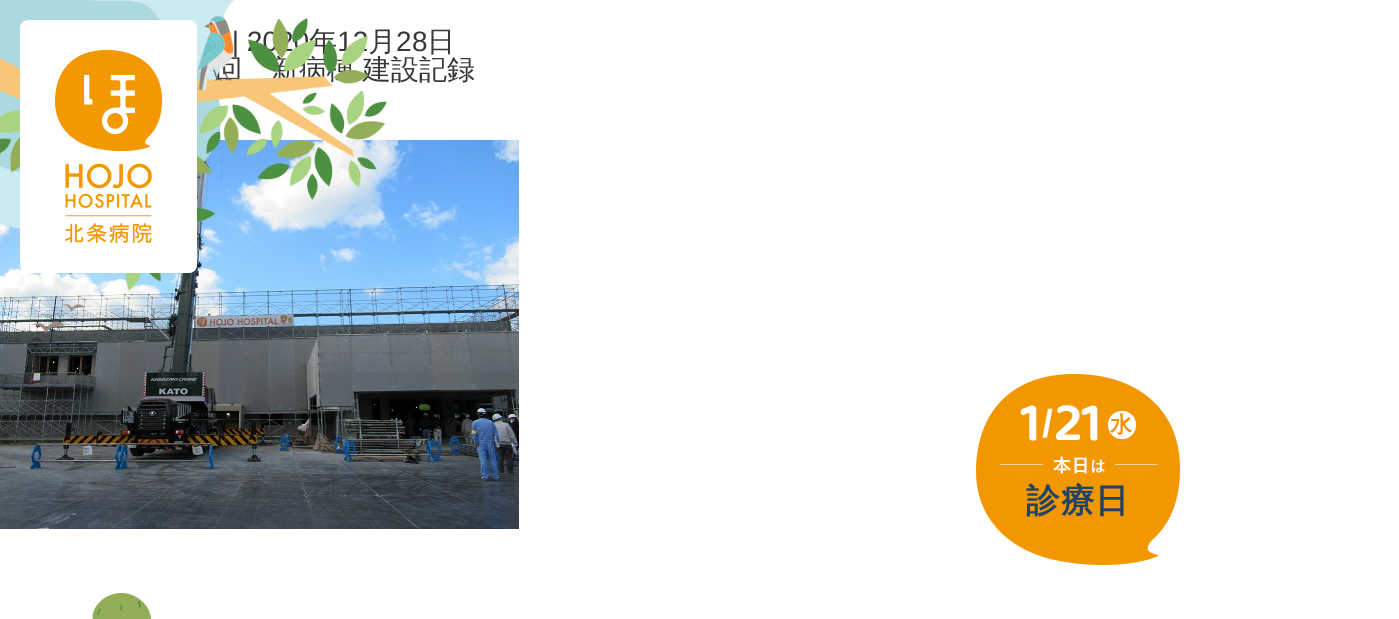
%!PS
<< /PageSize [1399 619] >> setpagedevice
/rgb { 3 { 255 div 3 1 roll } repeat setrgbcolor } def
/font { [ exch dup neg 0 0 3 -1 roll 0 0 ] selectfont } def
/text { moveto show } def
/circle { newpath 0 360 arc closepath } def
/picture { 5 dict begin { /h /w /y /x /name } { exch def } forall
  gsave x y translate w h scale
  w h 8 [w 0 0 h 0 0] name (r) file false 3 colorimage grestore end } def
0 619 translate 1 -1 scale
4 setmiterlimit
255 255 255 rgb
0 0 1399 619 rectfill
(img_03.rgb) 0 140 519 389 picture
(img_04.rgb) 976 374 204 191 picture
1122 425 14 circle fill
(img_05.rgb) 92 593 60 26 picture
/LiberationSans-Regular 28 font
55 55 55 rgb
(|) 232 51 text
/WenQuanYiZenHei-Medium 28 font
(年) 309 51 text
(月) 368 51 text
/LiberationSans-Regular 28 font
(28) 396 51 text
/WenQuanYiZenHei-Medium 28 font
(日) 427 51 text
(建設記録) 363 79 text
(img_01.rgb) 0 0 387 334 picture
(img_02.rgb) 20 20 177 253 picture
/BalooBhai2-SemiBold 56 font
255 255 255 rgb
1020 440 moveto -2 0 (1) ashow
/LiberationSans-Bold 39 font
1042 437 moveto -2 0 (/) ashow
/BalooBhai2-SemiBold 56 font
1054 440 moveto -2 0 (21) ashow
/WenQuanYiZenHei-Bold 22 font
243 143 0 rgb
(水) 1110 432 text
/WenQuanYiZenHei-Bold 33.5 font
33 67 101 rgb
1026 512 moveto 1 0 (診療日) ashow
showpage
